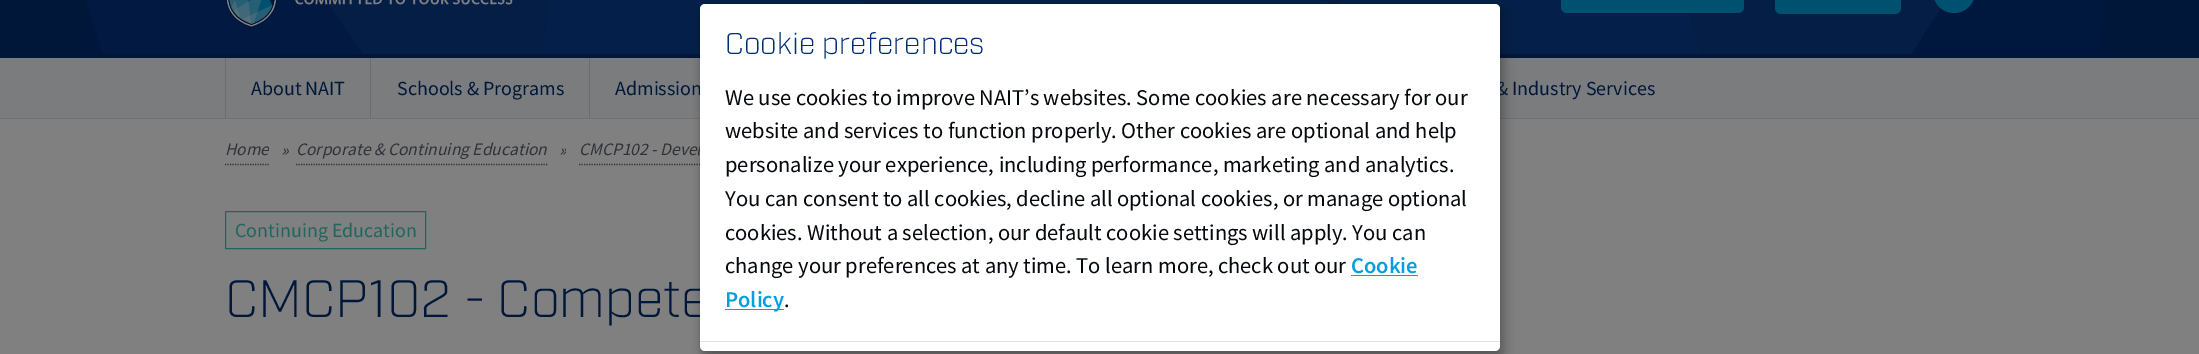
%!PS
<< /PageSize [2199 354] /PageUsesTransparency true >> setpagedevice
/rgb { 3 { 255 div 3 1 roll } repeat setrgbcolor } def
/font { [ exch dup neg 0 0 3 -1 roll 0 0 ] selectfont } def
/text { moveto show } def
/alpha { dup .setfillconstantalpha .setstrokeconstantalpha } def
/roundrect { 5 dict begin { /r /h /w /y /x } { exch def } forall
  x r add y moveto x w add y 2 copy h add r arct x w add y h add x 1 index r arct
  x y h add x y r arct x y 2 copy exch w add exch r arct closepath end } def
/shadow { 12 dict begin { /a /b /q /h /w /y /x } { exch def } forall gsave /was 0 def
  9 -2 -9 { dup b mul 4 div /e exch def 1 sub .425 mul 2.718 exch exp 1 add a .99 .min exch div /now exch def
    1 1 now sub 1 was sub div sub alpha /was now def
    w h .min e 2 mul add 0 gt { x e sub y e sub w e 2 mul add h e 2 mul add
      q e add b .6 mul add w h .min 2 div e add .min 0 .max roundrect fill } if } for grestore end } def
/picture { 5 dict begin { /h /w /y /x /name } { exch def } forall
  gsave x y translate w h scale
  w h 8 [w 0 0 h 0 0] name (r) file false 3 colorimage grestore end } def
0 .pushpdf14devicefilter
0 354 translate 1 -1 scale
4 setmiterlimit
128 128 128 rgb
0 0 2199 354 rectfill
0 23 58 rgb
0 0 2199 58 rectfill
(img_01.rgb) 86 0 2020 54 picture
123 124 125 rgb
0 58 2199 60 rectfill
112 113 116 rgb
0 118 2199 1 rectfill
47 50 55 rgb
1.2 setlinewidth
[1.25 1.25] 0 setdash
579 164.5 moveto 338.5 0 rlineto stroke
0 0 0 rgb
706 10 800 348 5 6 0.19 shadow
700 9 800 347 5 4 0.2 shadow
(img_02.rgb) 225 0 288 28 picture
0 80 112 rgb
1561 -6 183 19 6 roundrect fill
1775 -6 126 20 6 roundrect fill
1933 -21 42 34 21 roundrect fill
108 108 108 rgb
225 58 1 60 rectfill
370 58 1 60 rectfill
589 58 1 60 rectfill
47 50 55 rgb
225 164.5 moveto 44 0 rlineto stroke
296 164.5 moveto 251.5 0 rlineto stroke
31 102 95 rgb
1 setlinewidth
[] 0 setdash
225.5 211.5 200 37 rectstroke
/SourceSansPro-Regular 20 font
0 23 58 rgb
(About NAIT) 251 95 text
(Schools & Programs) 397 95 text
(Admission) 615 95 text
(& Industry Services) 1496 95 text
gsave
225 138 44 26 rectclip
/SourceSansPro-Italic 17.5 font
47 50 55 rgb
(Home) 225 155 text
grestore
/SourceSansPro-Italic 17.5 font
47 50 55 rgb
(») 281 156 text
(Corporate & Continuing Education) 296 155 text
gsave
559 139 7 26 rectclip
(») 559 156 text
grestore
(CMCP102 - Devel) 579 155 text
/SourceSansPro-Regular 20 font
31 102 95 rgb
(Continuing Education) 235 237 text
/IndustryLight-Light 52.5 font
0 23 58 rgb
(CMCP102 - Compete) 225 317 text
255 255 255 rgb
700 4 800 347 5 roundrect fill
/SourceSansPro-Regular 22.5 font
5 9 14 rgb
(.) 784 307 text
0 160 223 rgb
725 309 59 1 rectfill
/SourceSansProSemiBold-SemiBold 22.5 font
(Policy) 725 307 text
(Cookie) 1351 273 text
1351 275 67 1 rectfill
/SourceSansPro-Regular 22.5 font
5 9 14 rgb
(change your preferences at any time. To learn more, check out our) 725 273 text
(cookies. Without a selection, our default cookie settings will apply. You can) 725 240 text
(You can consent to all cookies, decline all optional cookies, or manage optional) 725 206 text
(personalize your experience, including performance, marketing and analytics.) 725 172 text
(website and services to function properly. Other cookies are optional and help) 725 138 text
(We use cookies to improve NAIT’s websites. Some cookies are necessary for our) 725 105 text
/IndustryLight-Light 30 font
0 45 116 rgb
(Cookie preferences) 725 54 text
223 226 232 rgb
700 341 800 1 rectfill
.poppdf14devicefilter showpage
